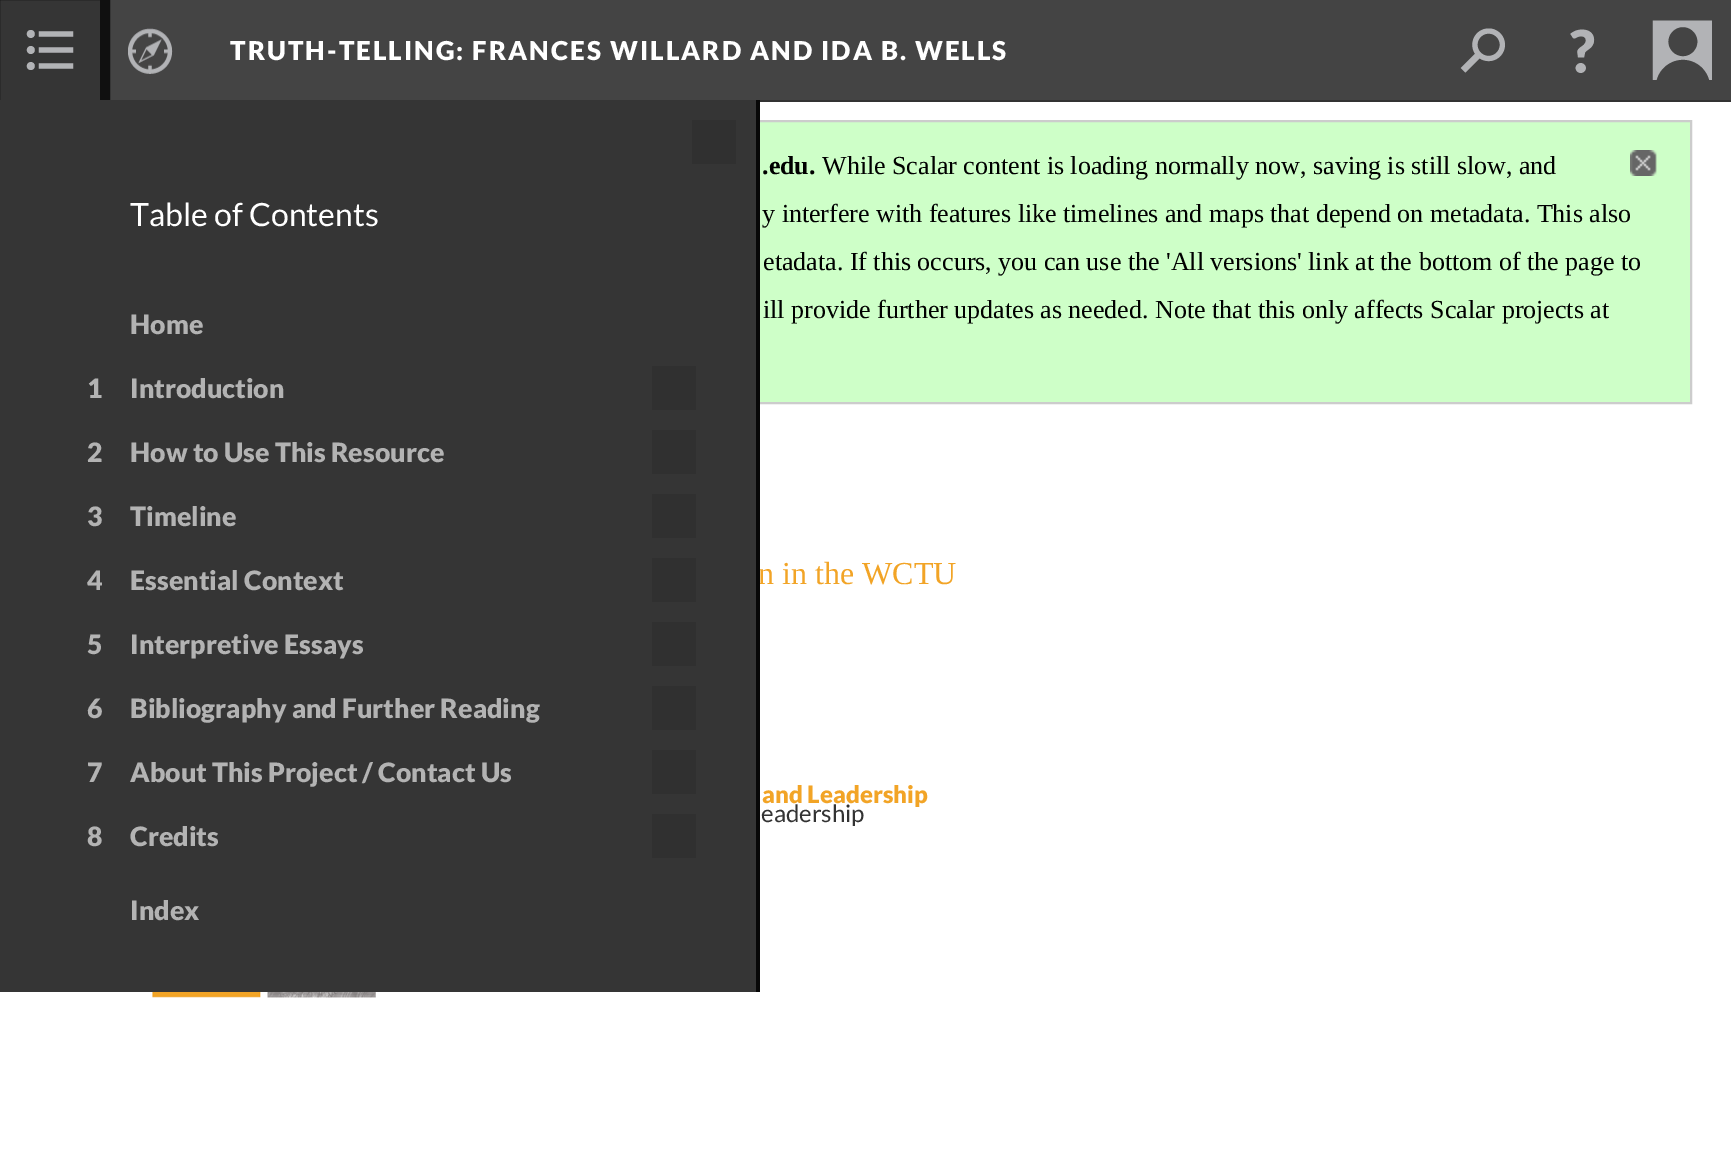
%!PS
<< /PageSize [1731 1175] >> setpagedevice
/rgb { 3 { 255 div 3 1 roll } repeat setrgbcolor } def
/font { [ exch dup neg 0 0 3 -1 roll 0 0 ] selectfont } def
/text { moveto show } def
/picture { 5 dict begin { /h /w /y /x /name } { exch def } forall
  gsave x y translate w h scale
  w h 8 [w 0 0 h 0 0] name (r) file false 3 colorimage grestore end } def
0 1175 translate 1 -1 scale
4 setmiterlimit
255 255 255 rgb
0 0 1731 1175 rectfill
68 68 68 rgb
110 0 1621 100 rectfill
51 51 51 rgb
760 100 971 2 rectfill
(img_01.rgb) 1460 28 45 45 picture
(img_02.rgb) 1570 29 25 44 picture
(img_03.rgb) 1652 20 60 60 picture
(img_04.rgb) 128 28 45 46 picture
53 53 53 rgb
0 0 100 100 rectfill
(img_05.rgb) 26 30 48 40 picture
16 16 16 rgb
10 setlinewidth
-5 -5 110 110 rectstroke
206 255 200 rgb
760 122 930 280 rectfill
204 204 204 rgb
2 setlinewidth
21 121 1670 282 rectstroke
53 53 53 rgb
0 100 756 892 rectfill
48 48 48 rgb
692 120 44 44 rectfill
652 366 44 44 rectfill
652 430 44 44 rectfill
652 494 44 44 rectfill
652 558 44 44 rectfill
652 622 44 44 rectfill
652 686 44 44 rectfill
652 750 44 44 rectfill
652 814 44 44 rectfill
(img_06.rgb) 1630 150 27 26 picture
(img_07.rgb) 152 992 224 6 picture
/Lato-Black 26 font
255 255 255 rgb
230 60 moveto 2 0 (TRUTH-TELLING: FRANCES WILLARD AND IDA B. WELLS) ashow
/Lato-Regular 32 font
(Table of Contents) 130 226 text
/Lato-Black 26.7 font
179 179 179 rgb
(Home) 130 334 text
(1) 87 398 text
(Introduction) 130 398 text
(2) 87 462 text
(How to Use This Resource) 130 462 text
(3) 87 526 text
(Timeline) 130 526 text
(4) 87 590 text
(Essential Context) 130 590 text
(5) 87 654 text
(Interpretive Essays) 130 654 text
(6) 87 718 text
(Bibliography and Further Reading) 130 718 text
(7) 87 782 text
(About This Project / Contact Us) 130 782 text
(8) 87 846 text
(Credits) 130 846 text
(Index) 130 920 text
/LiberationSerif-Bold 26 font
0 0 0 rgb
(.edu.) 762 174 text
/LiberationSerif-Regular 26 font
(While Scalar content is loading normally now, saving is still slow, and) 822 174 text
(y interfere with features like timelines and maps that depend on metadata. This also) 762 222 text
(etadata. If this occurs, you can use the 'All versions' link at the bottom of the page to) 763 270 text
(ill provide further updates as needed. Note that this only affects Scalar projects at) 763 318 text
/LiberationSerif-Regular 32 font
242 164 38 rgb
(n in the WCTU) 758 584 text
7 7 7 rgb
756 100 4 892 rectfill
/Lato-Black 24 font
242 164 38 rgb
(and Leadership) 762 803 text
/Lato-Regular 24 font
51 51 51 rgb
(eadership) 761 822 text
showpage
